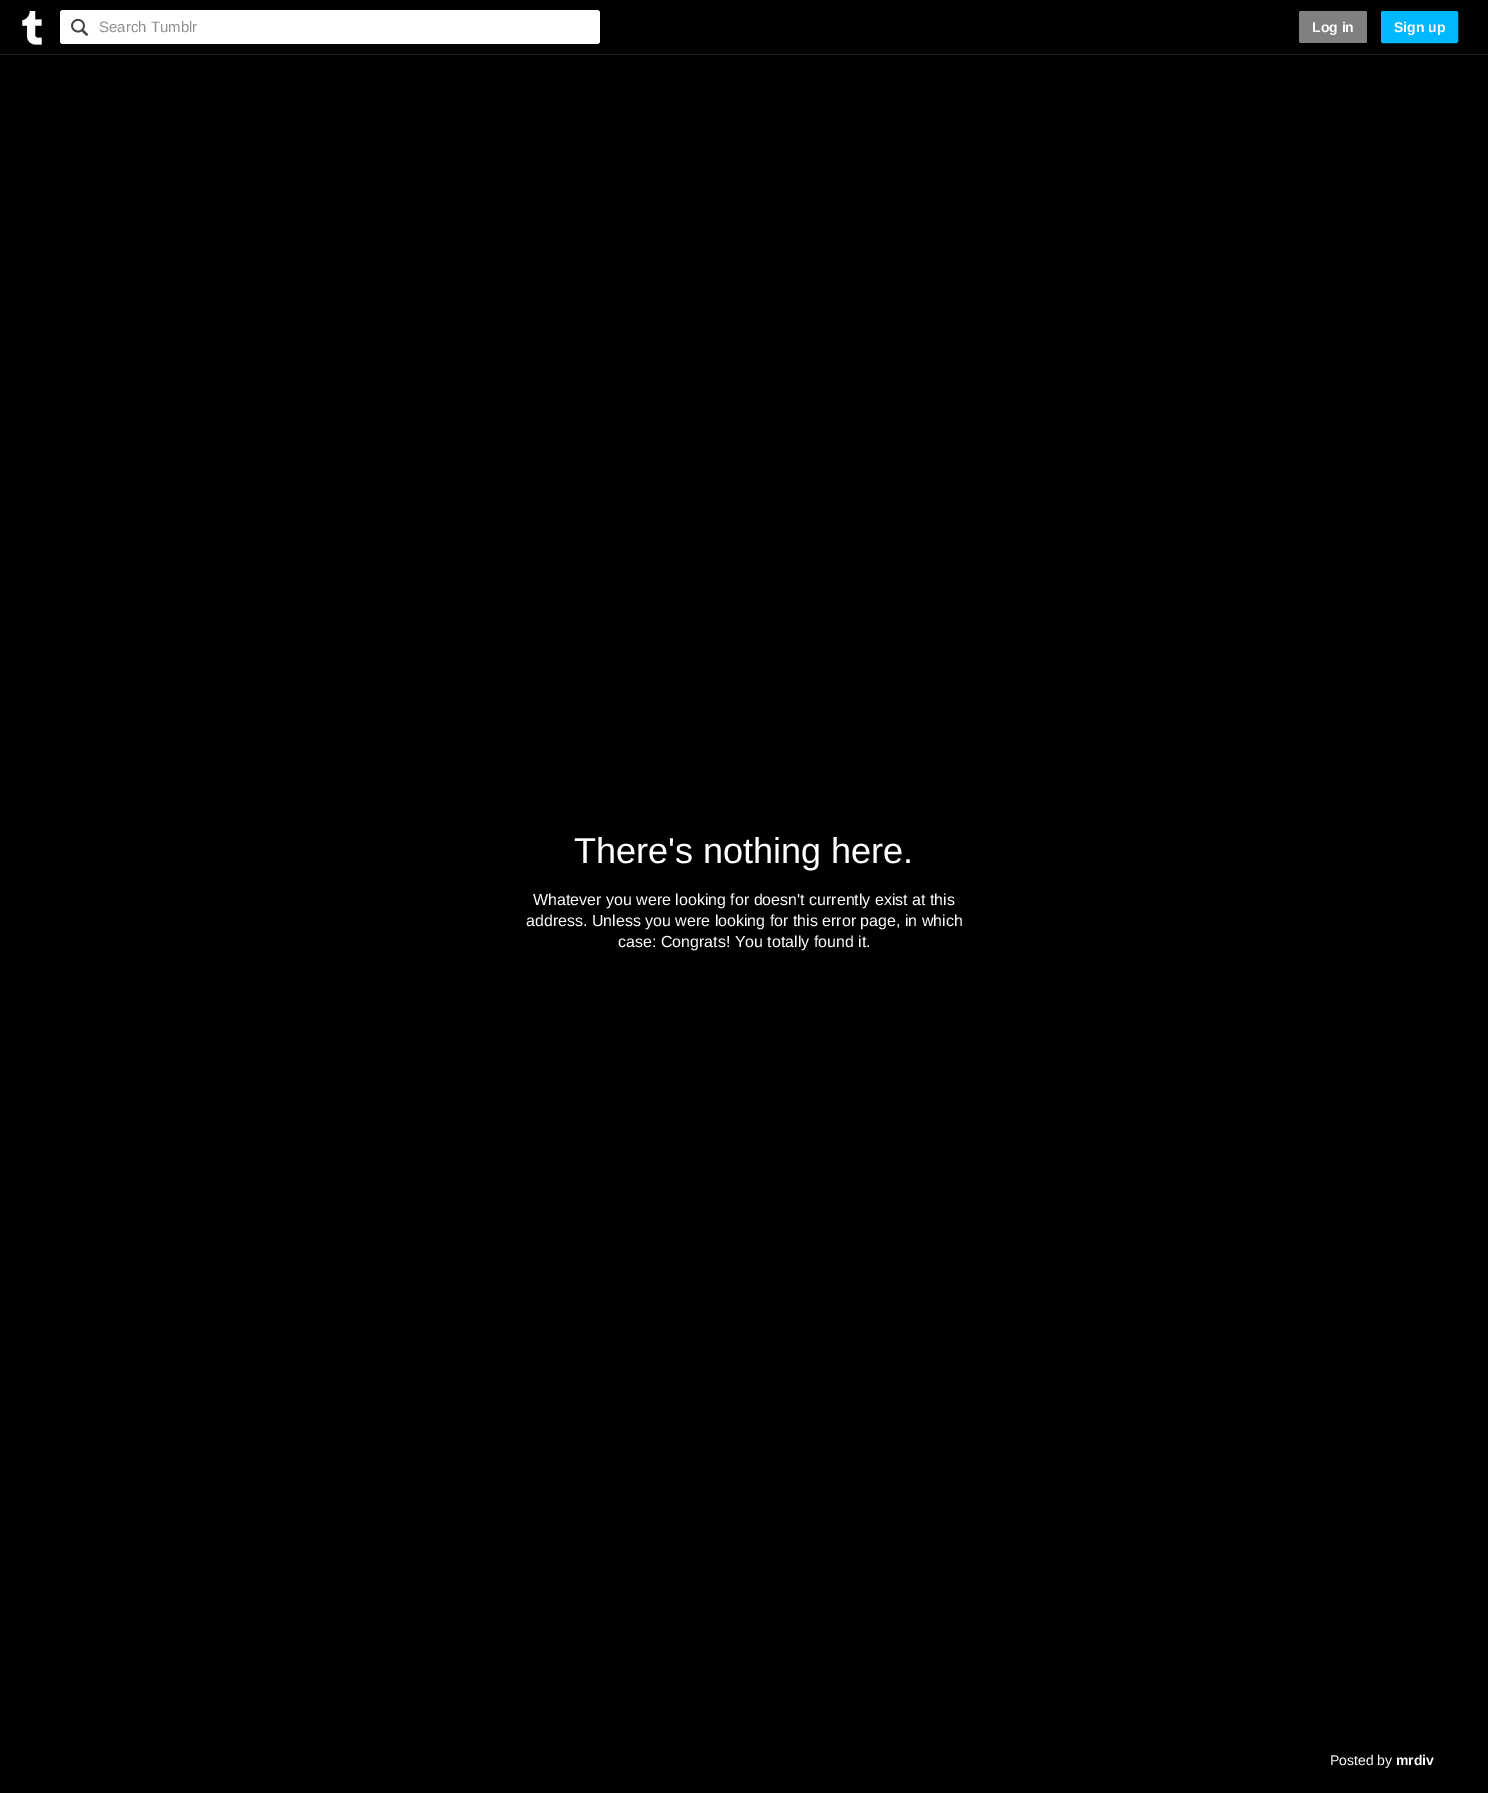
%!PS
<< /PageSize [1488 1793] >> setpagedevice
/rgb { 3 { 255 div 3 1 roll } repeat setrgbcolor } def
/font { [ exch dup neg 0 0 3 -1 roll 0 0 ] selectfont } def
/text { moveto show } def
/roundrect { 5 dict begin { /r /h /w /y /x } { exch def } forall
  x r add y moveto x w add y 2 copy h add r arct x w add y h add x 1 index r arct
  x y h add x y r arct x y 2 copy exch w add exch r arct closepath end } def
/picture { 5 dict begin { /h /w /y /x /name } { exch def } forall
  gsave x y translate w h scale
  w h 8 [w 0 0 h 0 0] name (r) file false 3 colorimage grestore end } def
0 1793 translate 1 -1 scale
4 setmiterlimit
0 0 0 rgb
0 0 1488 1793 rectfill
33 33 33 rgb
0 54 1488 1 rectfill
(img_01.rgb) 22 11 20 34 picture
255 255 255 rgb
60 10 540 34 3 roundrect fill
(img_02.rgb) 71 18 18 18 picture
128 128 128 rgb
1299 11 68 32 2 roundrect fill
0 184 255 rgb
1381.5 11.5 76 31 1.5 roundrect gsave fill grestore
stroke
/LiberationSans-Regular 15 font
143 143 143 rgb
(Search Tumblr) 99 32 text
/LiberationSans-Bold 14 font
255 255 255 rgb
(Log in) 1312 32 text
(Sign up) 1394 32 text
/LiberationSans-Regular 36 font
(There's nothing here.) 574 863 text
/LiberationSans-Regular 16 font
(Whatever you were looking for doesn't currently exist at this) 533 905 text
(address. Unless you were looking for this error page, in which) 526 926 text
(case: Congrats! You totally found it.) 618 947 text
/LiberationSans-Regular 14 font
(Posted by) 1330 1765 text
/LiberationSans-Bold 14 font
(mrdiv) 1396 1765 text
showpage
